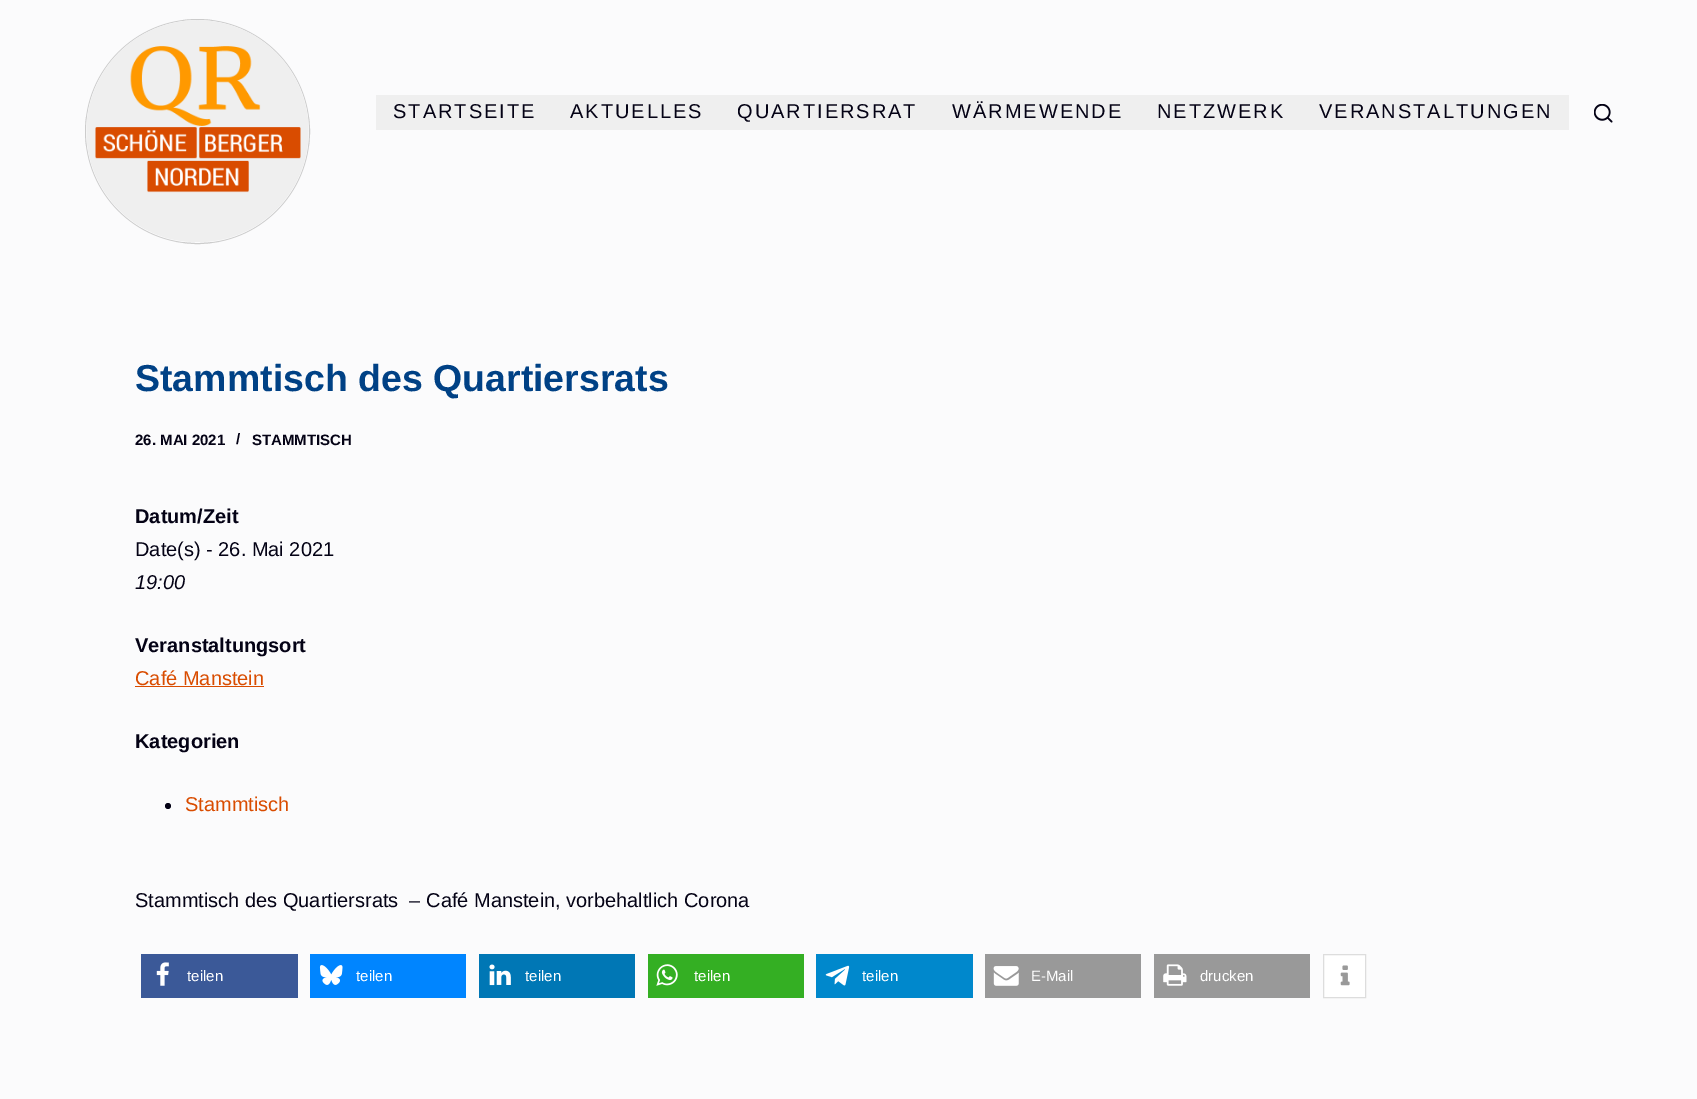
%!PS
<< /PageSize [1697 1099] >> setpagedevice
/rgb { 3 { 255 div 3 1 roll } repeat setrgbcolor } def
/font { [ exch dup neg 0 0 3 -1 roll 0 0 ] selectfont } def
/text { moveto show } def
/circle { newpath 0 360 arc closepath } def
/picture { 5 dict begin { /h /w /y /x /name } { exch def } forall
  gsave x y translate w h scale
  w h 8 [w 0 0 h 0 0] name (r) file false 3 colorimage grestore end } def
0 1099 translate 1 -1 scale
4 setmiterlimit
251 251 252 rgb
0 0 1697 1099 rectfill
204 204 204 rgb
197.5 131.5 112 circle stroke
(img_01.rgb) 86 20 223 222 picture
239 239 239 rgb
376 95 1193 35 rectfill
(img_02.rgb) 1594 104 19 19 picture
217 76 0 rgb
135 686 129 1 rectfill
4 2 21 rgb
168 806 3 circle fill
59 89 152 rgb
141 954 157 44 rectfill
(img_03.rgb) 156 962 13 24 picture
0 133 255 rgb
310 954 156 44 rectfill
(img_04.rgb) 319 965 24 20 picture
0 119 181 rgb
479 954 156 44 rectfill
(img_05.rgb) 489 964 22 22 picture
52 175 35 rgb
648 954 156 44 rectfill
(img_06.rgb) 656 964 22 22 picture
0 136 204 rgb
816 954 157 44 rectfill
(img_07.rgb) 825 965 25 21 picture
153 153 153 rgb
985 954 156 44 rectfill
(img_08.rgb) 993 966 26 20 picture
1154 954 156 44 rectfill
(img_09.rgb) 1163 964 24 22 picture
255 255 255 rgb
1323.5 954.5 moveto 42 0 rlineto 0 43 rlineto -42 0 rlineto closepath gsave fill grestore
221 221 221 rgb
stroke
(img_10.rgb) 1340 965 10 21 picture
/LiberationSans-Regular 20 font
4 2 21 rgb
393 118 moveto 2 0 (STARTSEITE) ashow
570 118 moveto 2 0 (AKTUELLES) ashow
737 118 moveto 2 0 (QUARTIERSRAT) ashow
952 118 moveto 2 0 (WÄRMEWENDE) ashow
1157 118 moveto 2 0 (NETZWERK) ashow
1319 118 moveto 2 0 (VERANSTALTUNGEN) ashow
/LiberationSans-Bold 37.5 font
0 65 133 rgb
(Stammtisch des Quartiersrats) 135 391 text
/LiberationSans-Bold 15 font
4 2 21 rgb
(26. MAI 2021) 135 445 text
(/) 236 444 text
(STAMMTISCH) 252 445 text
/LiberationSans-Bold 20 font
(Datum/Zeit) 135 523 text
/LiberationSans-Regular 20 font
(Date\(s\) - 26. Mai 2021) 135 556 text
/LiberationSans-Italic 20 font
(19:00) 135 589 text
/LiberationSans-Bold 20 font
(Veranstaltungsort) 135 652 text
/LiberationSans-Regular 20 font
217 76 0 rgb
(Café Manstein) 135 685 text
/LiberationSans-Bold 20 font
4 2 21 rgb
(Kategorien) 135 748 text
/LiberationSans-Regular 20 font
217 76 0 rgb
(Stammtisch) 185 811 text
4 2 21 rgb
(Stammtisch des Quartiersrats  – Café Manstein, vorbehaltlich Corona) 135 907 text
/LiberationSans-Regular 15 font
255 255 255 rgb
(teilen) 187 981 text
(teilen) 356 981 text
(teilen) 525 981 text
(teilen) 694 981 text
(teilen) 862 981 text
(E-Mail) 1031 981 text
(drucken) 1200 981 text
showpage
